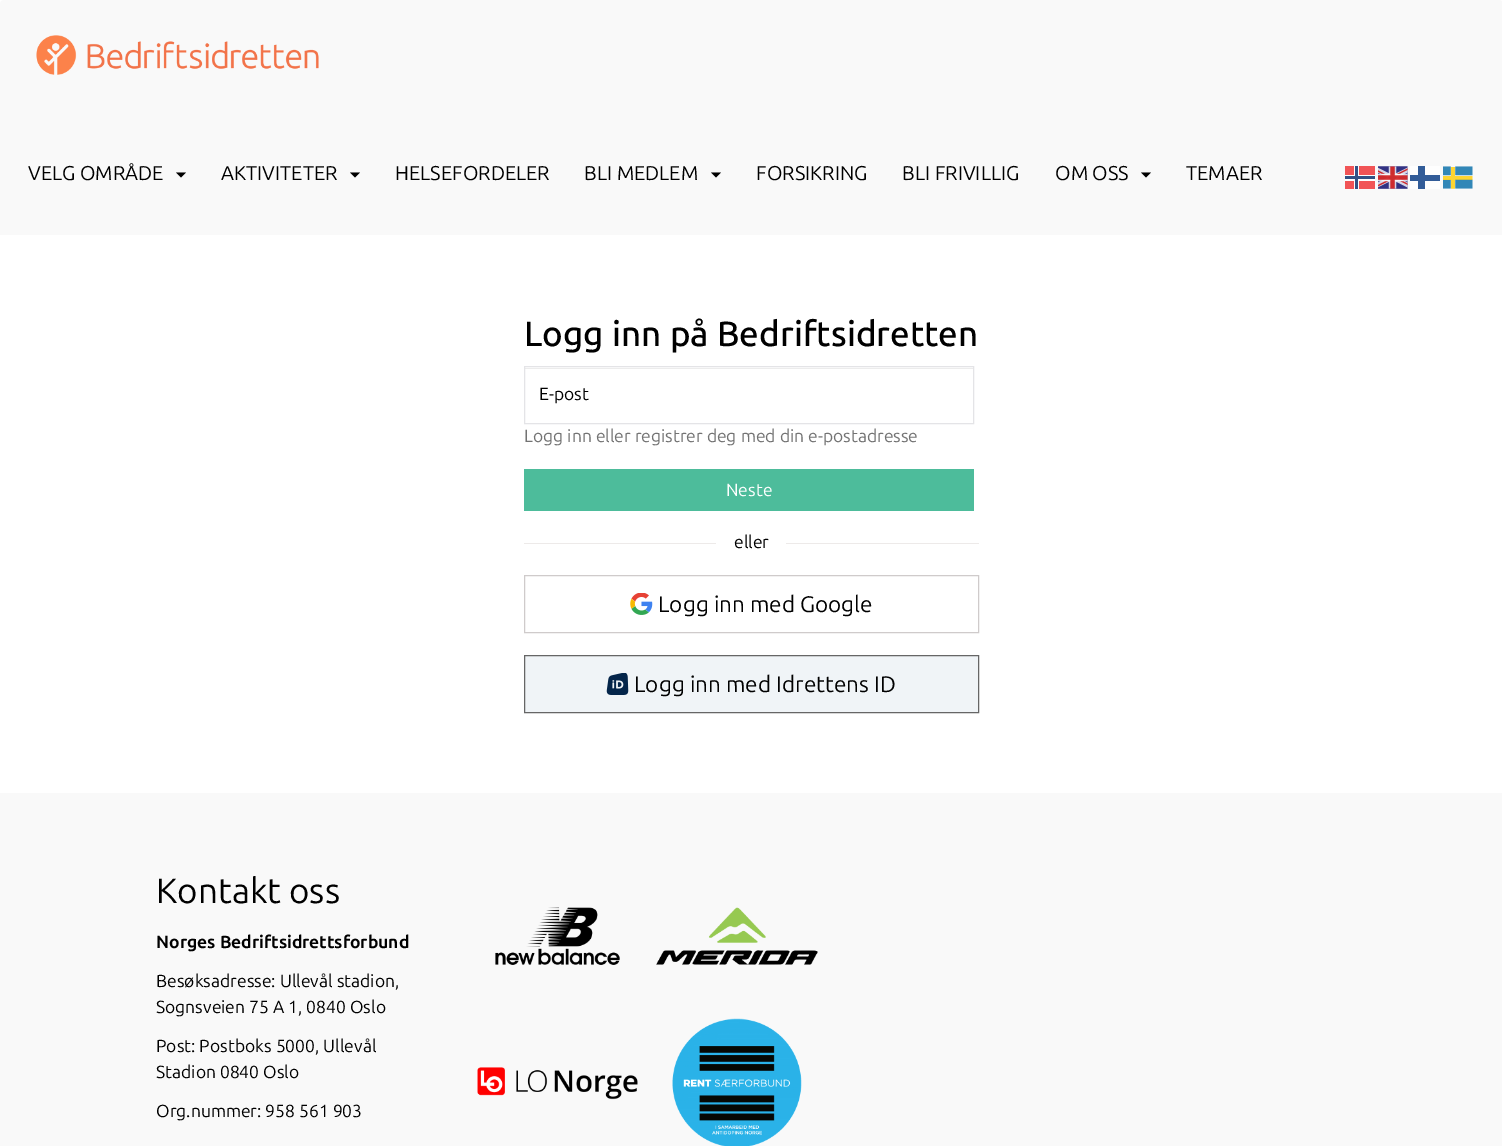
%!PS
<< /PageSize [1502 1146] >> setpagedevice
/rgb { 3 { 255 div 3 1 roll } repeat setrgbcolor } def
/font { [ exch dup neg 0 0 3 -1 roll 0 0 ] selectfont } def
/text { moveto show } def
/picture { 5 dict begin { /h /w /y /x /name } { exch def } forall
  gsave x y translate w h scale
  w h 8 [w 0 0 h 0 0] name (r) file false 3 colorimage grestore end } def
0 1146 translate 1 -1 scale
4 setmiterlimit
255 255 255 rgb
0 0 1502 1146 rectfill
249 249 249 rgb
4 0 moveto 1495 0 rlineto 2 0 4 2 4 4 rcurveto 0 231 rlineto -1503 0 rlineto 0 -231 rlineto 0 -2 2 -4 4 -4 rcurveto closepath fill
(img_01.rgb) 36 35 283 40 picture
0 0 0 rgb
176 172.5 moveto 10 0 rlineto -5 5 rlineto closepath fill
350 172.5 moveto 10 0 rlineto -5 5 rlineto closepath fill
711 172.5 moveto 10 0 rlineto -5 5 rlineto closepath fill
1141 172.5 moveto 10 0 rlineto -5 5 rlineto closepath fill
241 84 86 rgb
1345 166 30 23 rectfill
254 254 254 rgb
1354 166 5 23 rectfill
1345 175 30 6 rectfill
50 82 133 rgb
1355 166 3 23 rectfill
(img_02.rgb) 1378 166 30 23 picture
254 254 254 rgb
1410 166 30 23 rectfill
50 92 152 rgb
1410 175 30 6 rectfill
1418 166 7 23 rectfill
(img_03.rgb) 1443 166 30 23 picture
50 82 133 rgb
1345 176 30 3 rectfill
236 236 236 rgb
525 368 448 1 rectfill
228 228 231 rgb
524.5 366.5 449 57 rectstroke
77 188 155 rgb
524 469 450 42 rectfill
237 234 233 rgb
524 543 192 1 rectfill
786 543 193 1 rectfill
207 203 203 rgb
524.5 575.5 454 57 rectstroke
(img_04.rgb) 630 593 23 22 picture
240 244 247 rgb
524.5 655.5 moveto 454 0 rlineto 0 57 rlineto -454 0 rlineto closepath gsave fill grestore
102 102 102 rgb
stroke
(img_05.rgb) 606 673 23 22 picture
249 249 249 rgb
0 793 1502 353 rectfill
(img_06.rgb) 495 907 125 58 picture
(img_07.rgb) 656 907 162 58 picture
(img_08.rgb) 477 1067 161 33 picture
(img_09.rgb) 672 1018 130 128 picture
/Ubuntu-Regular 20 font
0 0 0 rgb
(VELG OMRÅDE) 28 180 text
(AKTIVITETER) 221 180 text
(HELSEFORDELER) 395 180 text
(BLI MEDLEM) 584 180 text
(FORSIKRING) 756 180 text
(BLI FRIVILLIG) 902 180 text
(OM OSS) 1055 180 text
(TEMAER) 1186 180 text
/Ubuntu-Medium 35 font
(Logg inn på Bedriftsidretten) 524 346 text
/Ubuntu-Regular 17.5 font
(E-post) 539 400 text
115 115 115 rgb
(Logg inn eller registrer deg med din e-postadresse) 524 442 text
255 255 255 rgb
(Neste) 726 496 text
0 0 0 rgb
(eller) 734 548 text
/Ubuntu-Regular 22.5 font
(Logg inn med Google) 658 612 text
(Logg inn med Idrettens ID) 634 692 text
/Ubuntu-Regular 35 font
(Kontakt oss) 156 903 text
/Ubuntu-Bold 17.5 font
(Norges Bedriftsidrettsforbund) 156 948 text
/Ubuntu-Regular 17.5 font
(Besøksadresse: Ullevål stadion,) 156 987 text
(Sognsveien 75 A 1, 0840 Oslo) 156 1013 text
(Post: Postboks 5000, Ullevål) 156 1052 text
(Stadion 0840 Oslo) 156 1078 text
(Org.nummer: 958 561 903) 156 1117 text
showpage
